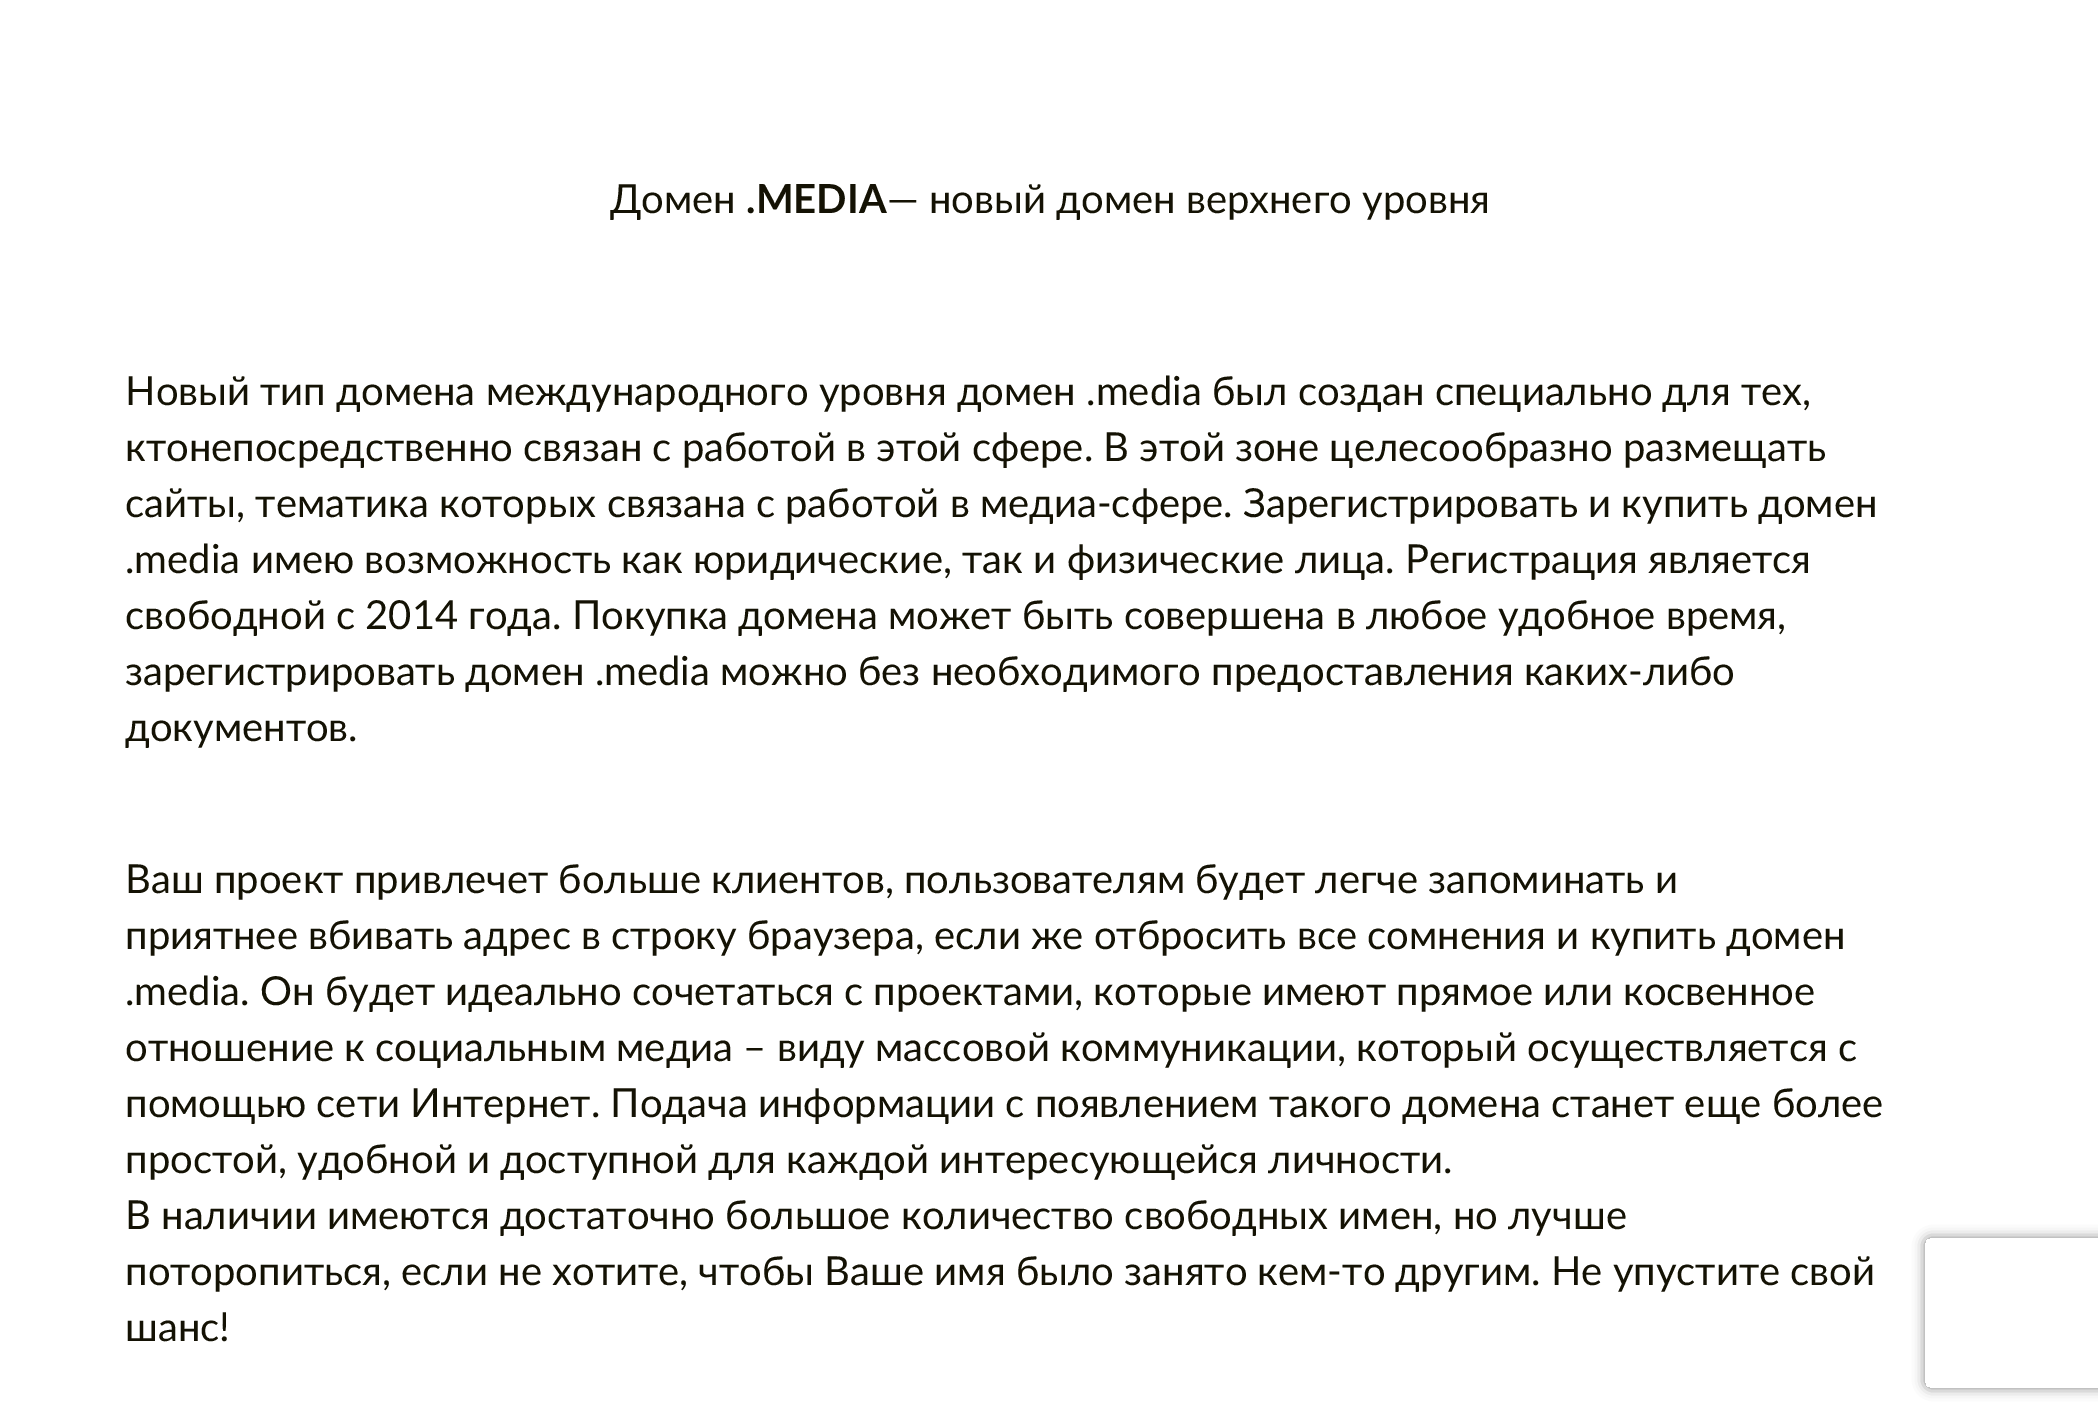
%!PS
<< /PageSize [2098 1422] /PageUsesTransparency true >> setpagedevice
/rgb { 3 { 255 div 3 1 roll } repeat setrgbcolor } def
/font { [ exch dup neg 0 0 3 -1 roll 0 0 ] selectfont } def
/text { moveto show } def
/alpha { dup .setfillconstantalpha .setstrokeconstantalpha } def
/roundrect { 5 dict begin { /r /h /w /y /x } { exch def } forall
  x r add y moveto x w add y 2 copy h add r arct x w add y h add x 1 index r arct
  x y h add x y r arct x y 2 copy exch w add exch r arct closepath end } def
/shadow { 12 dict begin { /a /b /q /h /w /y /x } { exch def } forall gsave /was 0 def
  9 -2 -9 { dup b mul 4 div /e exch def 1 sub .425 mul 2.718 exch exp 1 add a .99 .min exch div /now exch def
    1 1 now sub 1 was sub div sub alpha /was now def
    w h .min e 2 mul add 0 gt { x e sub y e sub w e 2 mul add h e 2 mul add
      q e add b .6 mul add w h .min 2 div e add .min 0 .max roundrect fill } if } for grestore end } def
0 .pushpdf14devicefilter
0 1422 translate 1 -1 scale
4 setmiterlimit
255 255 255 rgb
0 0 2098 1422 rectfill
gsave
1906 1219 moveto 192 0 rlineto 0 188 rlineto -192 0 rlineto closepath 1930 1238 moveto 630 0 rlineto 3 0 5 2 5 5 rcurveto 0 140 rlineto 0 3 -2 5 -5 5 rcurveto -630 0 rlineto -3 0 -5 -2 -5 -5 rcurveto 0 -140 rlineto 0 -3 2 -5 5 -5 rcurveto closepath eoclip newpath
128 128 128 rgb
1925 1238 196 150 5 6 1 shadow
grestore
/Lato-Regular 40 font
20 18 4 rgb
(Домен) 610 213 text
/Lato-Bold 40 font
(.MEDIA) 746 213 text
/Lato-Regular 40 font
(— новый домен верхнего уровня) 887 213 text
(Новый тип домена международного уровня домен .media был создан специально для тех,) 125 405 text
(ктонепосредственно связан с работой в этой сфере. В этой зоне целесообразно размещать) 125 461 text
(сайты, тематика которых связана с работой в медиа-сфере. Зарегистрировать и купить домен) 125 517 text
(.media имею возможность как юридические, так и физические лица. Регистрация является) 125 573 text
(свободной с 2014 года. Покупка домена может быть совершена в любое удобное время,) 125 629 text
(зарегистрировать домен .media можно без необходимого предоставления каких-либо) 125 685 text
(документов.) 125 741 text
(Ваш проект привлечет больше клиентов, пользователям будет легче запоминать и) 125 893 text
(приятнее вбивать адрес в строку браузера, если же отбросить все сомнения и купить домен) 125 949 text
(.media. Он будет идеально сочетаться с проектами, которые имеют прямое или косвенное) 125 1005 text
(отношение к социальным медиа – виду массовой коммуникации, который осуществляется с) 125 1061 text
(помощью сети Интернет. Подача информации с появлением такого домена станет еще более) 125 1117 text
(простой, удобной и доступной для каждой интересующейся личности.) 125 1173 text
(В наличии имеются достаточно большое количество свободных имен, но лучше) 125 1229 text
(поторопиться, если не хотите, чтобы Ваше имя было занято кем-то другим. Не упустите свой) 125 1285 text
(шанс!) 125 1341 text
.poppdf14devicefilter showpage
